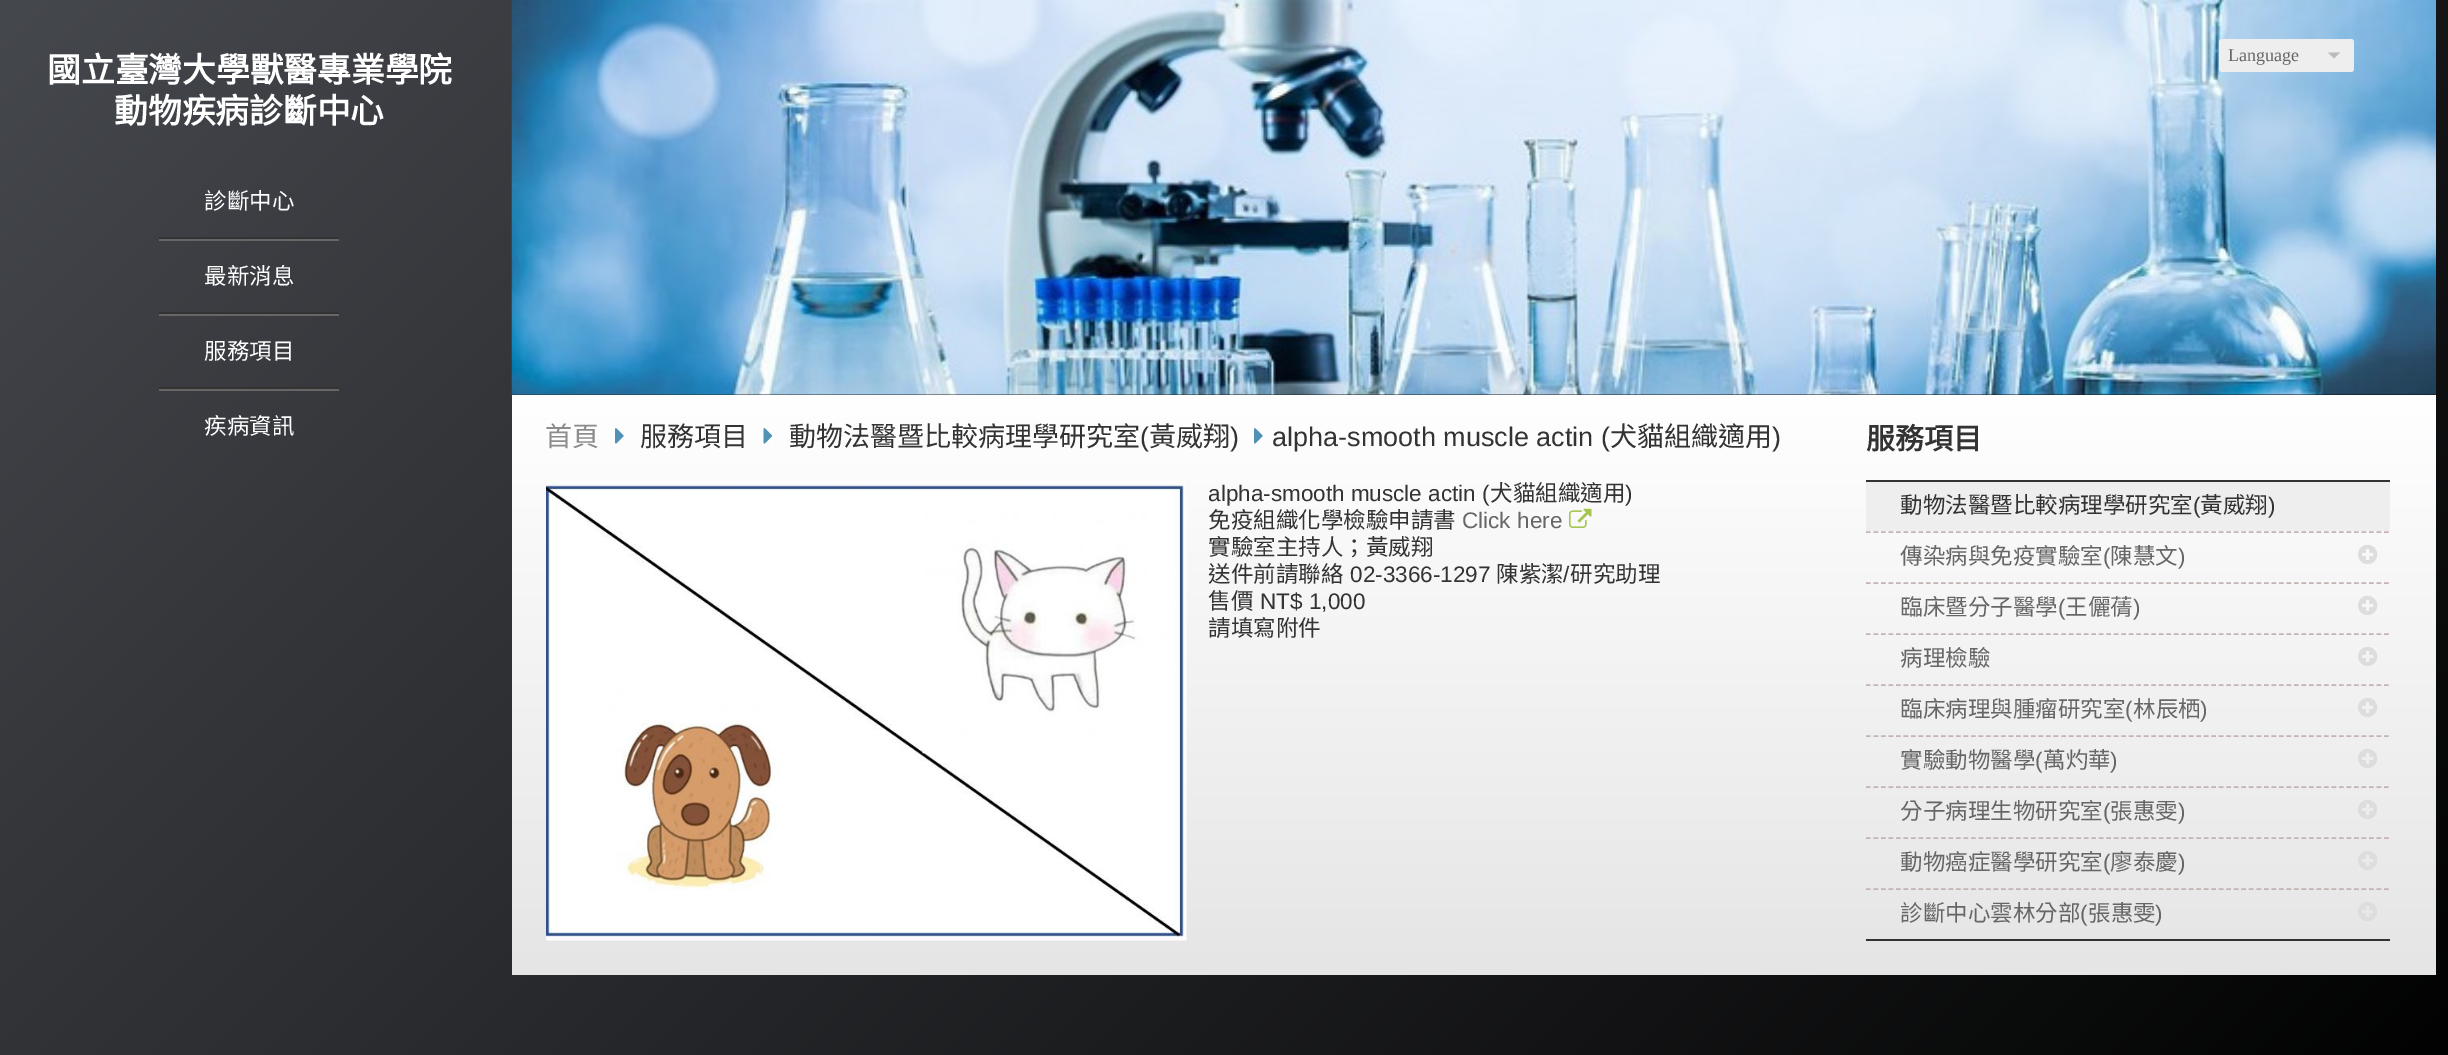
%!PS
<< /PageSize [2448 1055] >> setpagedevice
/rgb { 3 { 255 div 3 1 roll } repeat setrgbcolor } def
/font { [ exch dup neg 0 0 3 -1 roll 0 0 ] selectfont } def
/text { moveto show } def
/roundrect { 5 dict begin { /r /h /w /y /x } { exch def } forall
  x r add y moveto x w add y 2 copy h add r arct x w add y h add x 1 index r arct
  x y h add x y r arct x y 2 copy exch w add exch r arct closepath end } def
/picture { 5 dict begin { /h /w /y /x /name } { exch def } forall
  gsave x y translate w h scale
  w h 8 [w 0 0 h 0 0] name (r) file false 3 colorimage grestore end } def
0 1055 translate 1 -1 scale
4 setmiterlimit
255 255 255 rgb
0 0 2448 1055 rectfill
gsave 0 0 moveto 2448 0 rlineto 0 1055 rlineto -2448 0 rlineto closepath clip newpath
<< /ShadingType 2 /ColorSpace /DeviceRGB /Coords [324 -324 2124 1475] /Extend [true true] /Function << /FunctionType 2 /Domain [0 1] /C0 [0.271 0.282 0.302] /C1 [0 0 0] /N 1 >> >> shfill grestore
(img_01.rgb) 511 0 1925 395 picture
238 238 238 rgb
2219 39 135 33 3 roundrect fill
187 187 187 rgb
2328 52.5 moveto 12 0 rlineto -6 6 rlineto closepath fill
51 51 51 rgb
159 237 180 2 rectfill
102 102 102 rgb
159 239 180 2 rectfill
51 51 51 rgb
159 312 180 2 rectfill
102 102 102 rgb
159 314 180 2 rectfill
51 51 51 rgb
159 387 180 2 rectfill
102 102 102 rgb
159 389 180 2 rectfill
gsave 512 395 moveto 1924 0 rlineto 0 580 rlineto -1924 0 rlineto closepath clip newpath
<< /ShadingType 2 /ColorSpace /DeviceRGB /Coords [1474 394 1474 975] /Extend [true true] /Function << /FunctionType 2 /Domain [0 1] /C0 [1 1 1] /C1 [0.898 0.898 0.898] /N 1 >> >> shfill grestore
(img_02.rgb) 615 428 9 16 picture
(img_03.rgb) 763 428 10 16 picture
(img_02.rgb) 1254 428 9 16 picture
(img_04.rgb) 546 480 641 461 picture
(img_05.rgb) 1569 508 23 20 picture
51 51 51 rgb
1866 480 524 2 rectfill
195 179 179 rgb
1.5 setlinewidth
[4.5 3.01] 0 setdash
1866 532 moveto 523.5 0 rlineto stroke
238 238 238 rgb
1866 482 524 49 rectfill
195 179 179 rgb
1866 583 moveto 523.5 0 rlineto stroke
(img_06.rgb) 2358 544 20 20 picture
1866 634 moveto 523.5 0 rlineto stroke
(img_07.rgb) 2358 595 20 20 picture
1866 685 moveto 523.5 0 rlineto stroke
(img_08.rgb) 2358 647 20 19 picture
1866 736 moveto 523.5 0 rlineto stroke
(img_09.rgb) 2358 698 20 19 picture
1866 787 moveto 523.5 0 rlineto stroke
(img_10.rgb) 2358 749 20 19 picture
1866 838 moveto 523.5 0 rlineto stroke
(img_11.rgb) 2358 800 19 19 picture
1866 889 moveto 523.5 0 rlineto stroke
(img_12.rgb) 2358 851 19 19 picture
51 51 51 rgb
1866 939 524 2 rectfill
(img_13.rgb) 2358 902 19 19 picture
/NotoSansCJKTC-Bold 33.75 font
255 255 255 rgb
(國立臺灣大學獸醫專業學院) 47 82 text
(動物疾病診斷中心) 114 123 text
/LiberationSerif-Regular 18 font
102 102 102 rgb
(Language) 2228 61 text
/NotoSansCJKTC-Regular 22.5 font
255 255 255 rgb
(診斷中心) 204 209 text
(最新消息) 204 284 text
(服務項目) 204 359 text
(疾病資訊) 204 434 text
/NotoSansCJKTC-Regular 27 font
140 140 140 rgb
(首頁) 545 446 text
51 51 51 rgb
(服務項目) 640 446 text
(動物法醫暨比較病理學研究室) 789 446 text
/LiberationSans-Regular 27 font
(\() 1140 446 text
/NotoSansCJKTC-Regular 27 font
(黃威翔) 1149 446 text
/LiberationSans-Regular 27 font
(\)) 1230 446 text
(alpha-smooth muscle actin \() 1272 446 text
/NotoSansCJKTC-Regular 27 font
(犬貓組織適用) 1610 446 text
/LiberationSans-Regular 27 font
(\)) 1772 446 text
/LiberationSans-Regular 22.5 font
(alpha-smooth muscle actin \() 1208 501 text
/NotoSansCJKTC-Regular 22.5 font
(犬貓組織適用) 1490 501 text
/LiberationSans-Regular 22.5 font
(\)) 1625 501 text
/NotoSansCJKTC-Regular 22.5 font
(免疫組織化學檢驗申請書) 1208 528 text
/LiberationSans-Regular 22.5 font
102 102 102 rgb
(Click here) 1462 528 text
/NotoSansCJKTC-Regular 22.5 font
51 51 51 rgb
(實驗室主持人；黃威翔) 1208 555 text
(送件前請聯絡) 1208 582 text
/LiberationSans-Regular 22.5 font
(02-3366-1297) 1350 582 text
/NotoSansCJKTC-Regular 22.5 font
(陳紫潔) 1496 582 text
/LiberationSans-Regular 22.5 font
(/) 1563 582 text
/NotoSansCJKTC-Regular 22.5 font
(研究助理) 1570 582 text
(售價) 1208 609 text
/LiberationSans-Regular 22.5 font
(NT$ 1,000) 1260 609 text
/NotoSansCJKTC-Regular 22.5 font
(請填寫附件) 1208 636 text
/NotoSansCJKTC-Bold 29 font
(服務項目) 1866 449 text
/NotoSansCJKTC-Regular 22.5 font
(動物法醫暨比較病理學研究室) 1900 513 text
/LiberationSans-Regular 22.5 font
(\() 2193 513 text
/NotoSansCJKTC-Regular 22.5 font
(黃威翔) 2200 513 text
/LiberationSans-Regular 22.5 font
(\)) 2268 513 text
/NotoSansCJKTC-Regular 22.5 font
102 102 102 rgb
(傳染病與免疫實驗室) 1900 564 text
/LiberationSans-Regular 22.5 font
(\() 2103 564 text
/NotoSansCJKTC-Regular 22.5 font
(陳慧文) 2110 564 text
/LiberationSans-Regular 22.5 font
(\)) 2178 564 text
/NotoSansCJKTC-Regular 22.5 font
(臨床暨分子醫學) 1900 615 text
/LiberationSans-Regular 22.5 font
(\() 2058 615 text
/NotoSansCJKTC-Regular 22.5 font
(王儷蒨) 2065 615 text
/LiberationSans-Regular 22.5 font
(\)) 2133 615 text
/NotoSansCJKTC-Regular 22.5 font
(病理檢驗) 1900 666 text
(臨床病理與腫瘤研究室) 1900 717 text
/LiberationSans-Regular 22.5 font
(\() 2125 717 text
/NotoSansCJKTC-Regular 22.5 font
(林辰栖) 2133 717 text
/LiberationSans-Regular 22.5 font
(\)) 2200 717 text
/NotoSansCJKTC-Regular 22.5 font
(實驗動物醫學) 1900 768 text
/LiberationSans-Regular 22.5 font
(\() 2035 768 text
/NotoSansCJKTC-Regular 22.5 font
(萬灼華) 2043 768 text
/LiberationSans-Regular 22.5 font
(\)) 2110 768 text
/NotoSansCJKTC-Regular 22.5 font
(分子病理生物研究室) 1900 819 text
/LiberationSans-Regular 22.5 font
(\() 2103 819 text
/NotoSansCJKTC-Regular 22.5 font
(張惠雯) 2110 819 text
/LiberationSans-Regular 22.5 font
(\)) 2178 819 text
/NotoSansCJKTC-Regular 22.5 font
(動物癌症醫學研究室) 1900 870 text
/LiberationSans-Regular 22.5 font
(\() 2103 870 text
/NotoSansCJKTC-Regular 22.5 font
(廖泰慶) 2110 870 text
/LiberationSans-Regular 22.5 font
(\)) 2178 870 text
/NotoSansCJKTC-Regular 22.5 font
(診斷中心雲林分部) 1900 921 text
/LiberationSans-Regular 22.5 font
(\() 2080 921 text
/NotoSansCJKTC-Regular 22.5 font
(張惠雯) 2088 921 text
/LiberationSans-Regular 22.5 font
(\)) 2155 921 text
showpage
